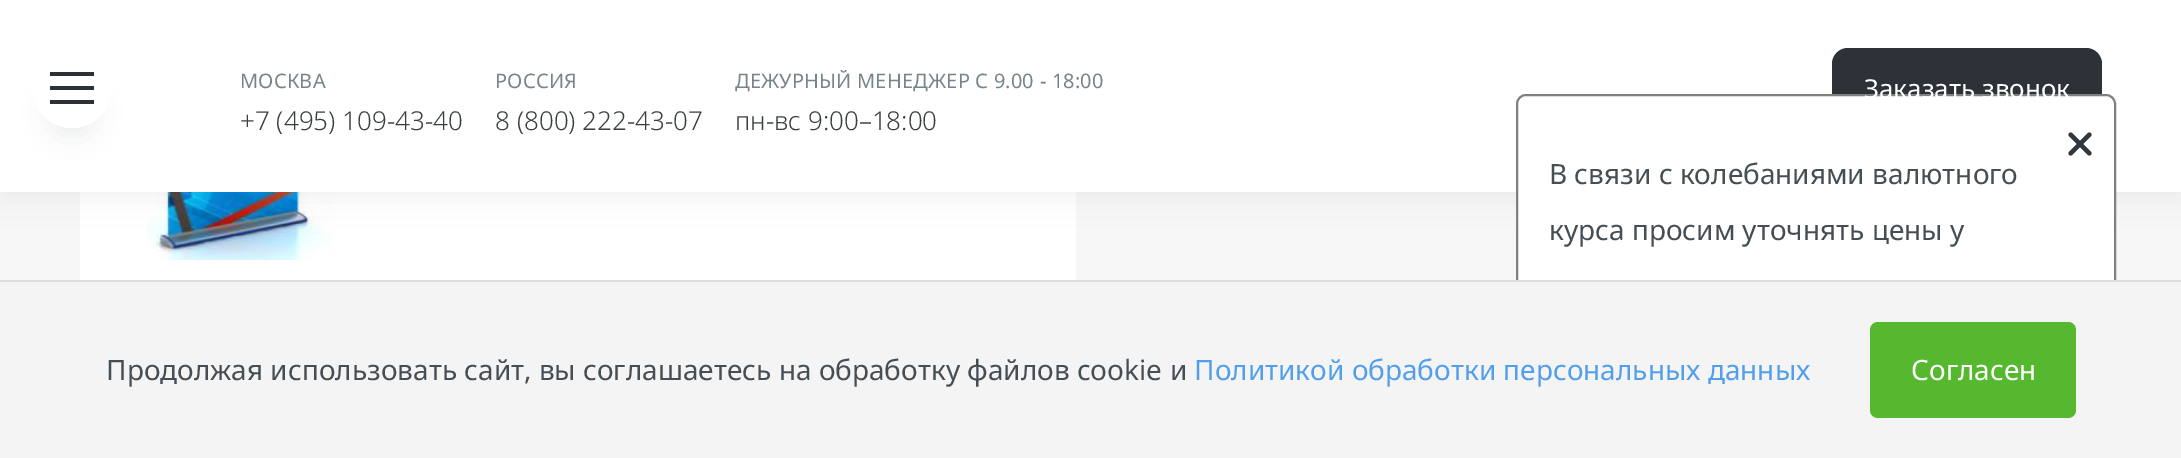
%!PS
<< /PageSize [2181 458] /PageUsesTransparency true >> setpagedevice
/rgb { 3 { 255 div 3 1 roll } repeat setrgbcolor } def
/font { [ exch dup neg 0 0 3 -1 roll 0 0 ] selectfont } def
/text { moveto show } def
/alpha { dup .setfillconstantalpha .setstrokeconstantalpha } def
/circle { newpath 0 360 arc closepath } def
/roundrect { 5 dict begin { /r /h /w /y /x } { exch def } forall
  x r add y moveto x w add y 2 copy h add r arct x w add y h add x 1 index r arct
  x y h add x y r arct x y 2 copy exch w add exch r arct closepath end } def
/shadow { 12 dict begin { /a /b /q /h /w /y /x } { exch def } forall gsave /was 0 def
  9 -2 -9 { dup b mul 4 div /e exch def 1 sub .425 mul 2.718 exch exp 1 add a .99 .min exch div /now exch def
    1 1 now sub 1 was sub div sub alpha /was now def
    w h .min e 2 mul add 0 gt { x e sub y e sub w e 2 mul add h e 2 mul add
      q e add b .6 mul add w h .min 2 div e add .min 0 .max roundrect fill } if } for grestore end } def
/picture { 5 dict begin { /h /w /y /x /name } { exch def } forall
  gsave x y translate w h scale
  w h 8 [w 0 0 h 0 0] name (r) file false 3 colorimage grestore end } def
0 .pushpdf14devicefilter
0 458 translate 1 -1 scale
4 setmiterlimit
247 247 248 rgb
0 0 2181 458 rectfill
255 255 255 rgb
80 192 996 88 rectfill
(img_01.rgb) 147 192 188 68 picture
63 74 82 rgb
0 0 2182 192 0 16 0.1 shadow
255 255 255 rgb
0 0 2181 192 rectfill
63 74 82 rgb
48 88 48 48 24 12 0.1 shadow
255 255 255 rgb
72 88 40 circle fill
45 50 57 rgb
50 72 44 4 rectfill
50 86 44 4 rectfill
50 100 44 4 rectfill
1832 48 270 80 16 roundrect fill
255 255 255 rgb
1517 95 598 270 9 roundrect gsave fill grestore
128 128 128 rgb
2 setlinewidth
stroke
(img_02.rgb) 2068 132 24 24 picture
244 244 244 rgb
0 282 2181 176 rectfill
221 221 221 rgb
0 280 2181 2 rectfill
86 184 47 rgb
1870 322 206 96 8 roundrect fill
/NotoSans-Regular 20 font
118 132 140 rgb
240 88 moveto 0.2 0 (МОСКВА) ashow
/NotoSans-Light 26 font
57 62 65 rgb
(+7 \(495\) 109-43-40) 240 130 text
/NotoSans-Regular 20 font
118 132 140 rgb
495 88 moveto 0.2 0 (РОССИЯ) ashow
/NotoSans-Light 26 font
57 62 65 rgb
(8 \(800\) 222-43-07) 495 130 text
/NotoSans-Regular 20 font
118 132 140 rgb
735 88 moveto 0.2 0 (ДЕЖУРНЫЙ МЕНЕДЖЕР С 9.00 - 18:00) ashow
/NotoSans-Light 26 font
57 62 65 rgb
(пн-вс 9:00–18:00) 735 130 text
/NotoSans-Regular 26 font
255 255 255 rgb
(Заказать звонок) 1864 98 text
/NotoSans-Regular 28 font
69 78 84 rgb
(В связи с колебаниями валютного) 1549 184 text
(курса просим уточнять цены у) 1549 240 text
(Продолжая использовать сайт, вы соглашаетесь на обработку файлов cookie и) 106 380 text
82 158 235 rgb
(Политикой обработки персональных данных) 1194 380 text
255 255 255 rgb
(Согласен) 1911 380 text
.poppdf14devicefilter showpage
